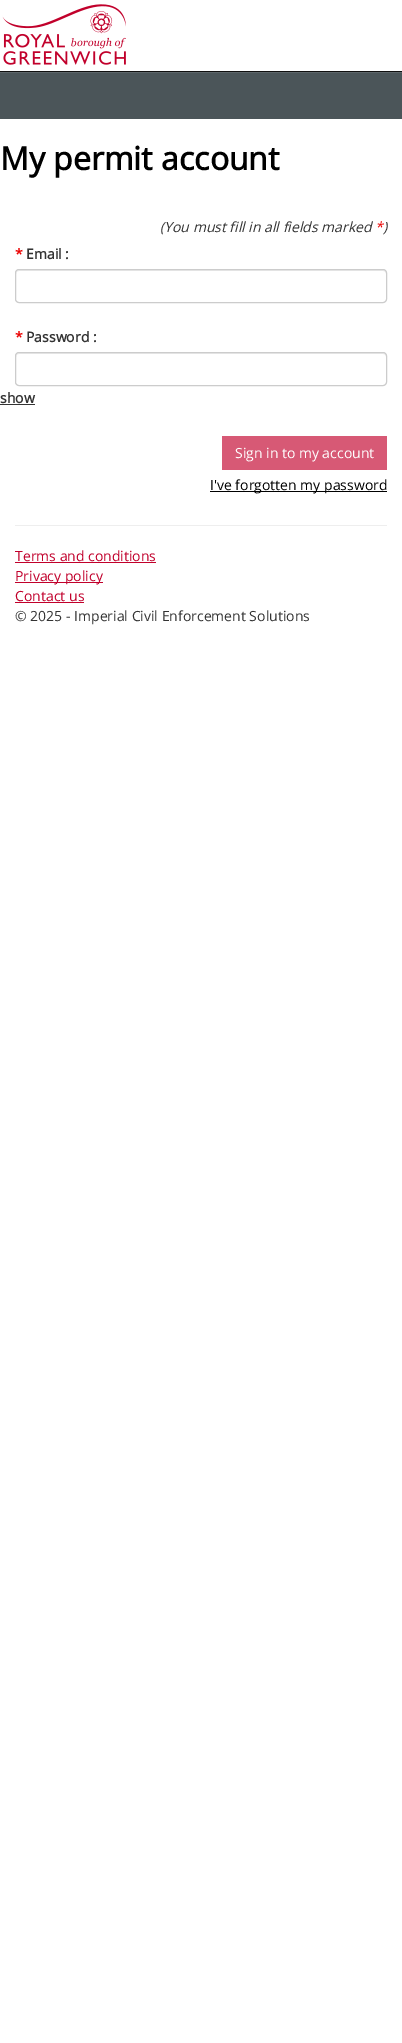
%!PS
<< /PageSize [402 2043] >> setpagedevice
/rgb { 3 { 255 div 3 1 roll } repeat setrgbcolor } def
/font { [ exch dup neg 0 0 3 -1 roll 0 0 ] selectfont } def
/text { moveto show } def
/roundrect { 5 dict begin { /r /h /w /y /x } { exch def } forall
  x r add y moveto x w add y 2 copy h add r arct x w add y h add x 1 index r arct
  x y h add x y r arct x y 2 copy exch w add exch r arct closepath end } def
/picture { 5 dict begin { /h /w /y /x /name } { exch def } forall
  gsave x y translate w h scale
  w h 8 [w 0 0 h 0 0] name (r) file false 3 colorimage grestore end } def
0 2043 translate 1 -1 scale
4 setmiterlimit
255 255 255 rgb
0 0 402 2043 rectfill
(img_01.rgb) 2 4 124 61 picture
75 85 89 rgb
0 73 402 46 rectfill
93 102 106 rgb
0 72 402 1 rectfill
16 16 16 rgb
0 71 402 1 rectfill
236 236 236 rgb
19 271 moveto 364 0 rlineto 2 0 3 1 3 3 rcurveto 0 -2 -1 -4 -3 -4 rcurveto -364 0 rlineto -2 1 rlineto -1 3 rlineto 0 -2 1 -3 3 -3 rcurveto closepath fill
204 204 204 rgb
15.5 269.5 371 33 3.5 roundrect stroke
236 236 236 rgb
19 354 moveto 364 0 rlineto 2 0 3 1 3 3 rcurveto 0 -2 -1 -4 -3 -4 rcurveto -364 0 rlineto -2 1 rlineto -1 3 rlineto 0 -2 1 -3 3 -3 rcurveto closepath fill
204 204 204 rgb
15.5 352.5 371 33 3.5 roundrect stroke
51 51 51 rgb
0 404 35 1 rectfill
215 89 117 rgb
222 436 165 34 rectfill
0 0 0 rgb
210 491 177 1 rectfill
238 238 238 rgb
15 525 372 1 rectfill
193 0 43 rgb
15 562 141 1 rectfill
15 582 88 1 rectfill
15 602 69 1 rectfill
/OpenSans-Bold 32 font
0 0 0 rgb
(My permit account) 0 170 text
/OpenSans-Italic 14 font
51 51 51 rgb
(\(You must fill in all fields marked) 160 232 text
235 0 0 rgb
(*) 375 232 text
51 51 51 rgb
(\)) 383 232 text
/OpenSans-Bold 14 font
235 0 0 rgb
(*) 15 259 text
51 51 51 rgb
(Email :) 26 259 text
235 0 0 rgb
(*) 15 342 text
51 51 51 rgb
(Password :) 26 342 text
(show) 0 403 text
/OpenSans-Regular 14 font
255 255 255 rgb
(Sign in to my account) 235 458 text
0 0 0 rgb
(I've forgotten my password) 210 490 text
193 0 43 rgb
(Terms and conditions) 15 561 text
(Privacy policy) 15 581 text
(Contact us) 15 601 text
51 51 51 rgb
(© 2025 - Imperial Civil Enforcement Solutions) 15 621 text
showpage
